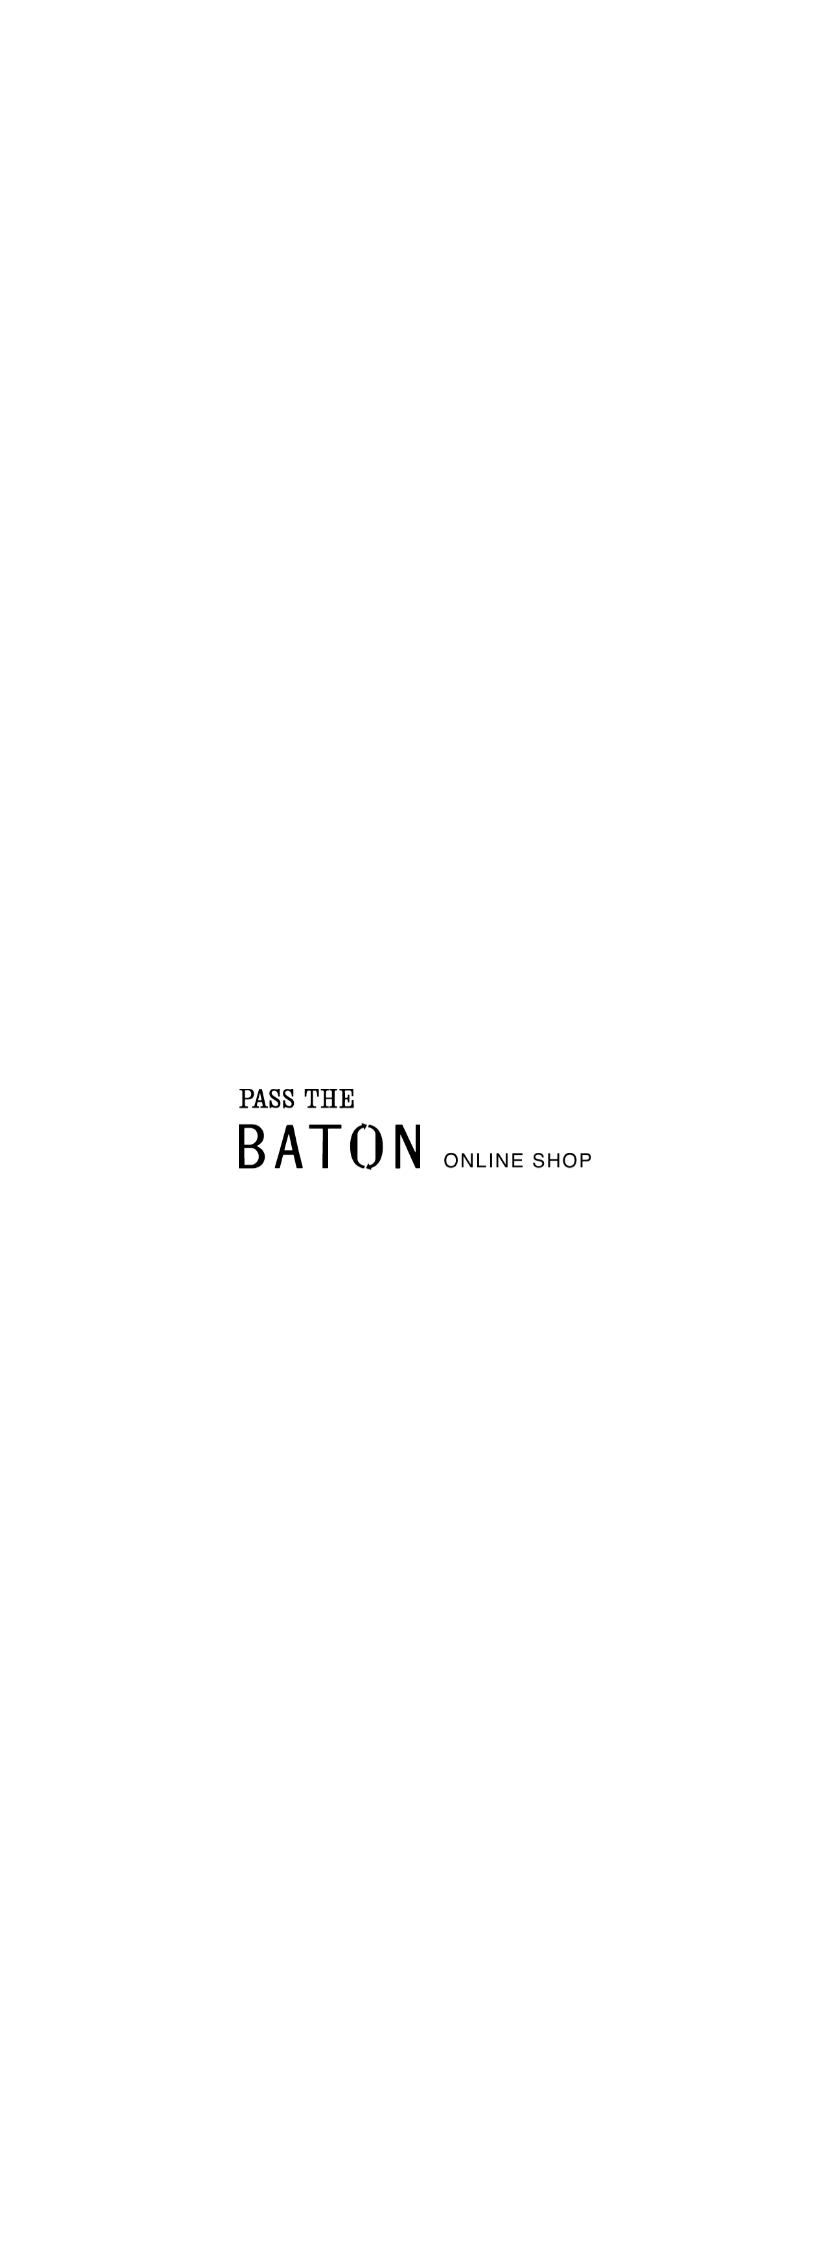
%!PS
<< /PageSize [831 2260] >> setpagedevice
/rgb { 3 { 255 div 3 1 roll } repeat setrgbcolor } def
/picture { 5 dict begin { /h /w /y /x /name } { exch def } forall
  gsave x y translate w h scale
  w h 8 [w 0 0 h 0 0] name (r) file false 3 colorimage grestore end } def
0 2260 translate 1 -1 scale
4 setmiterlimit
255 255 255 rgb
0 0 831 2260 rectfill
(img_01.rgb) 239 1089 353 82 picture
showpage
